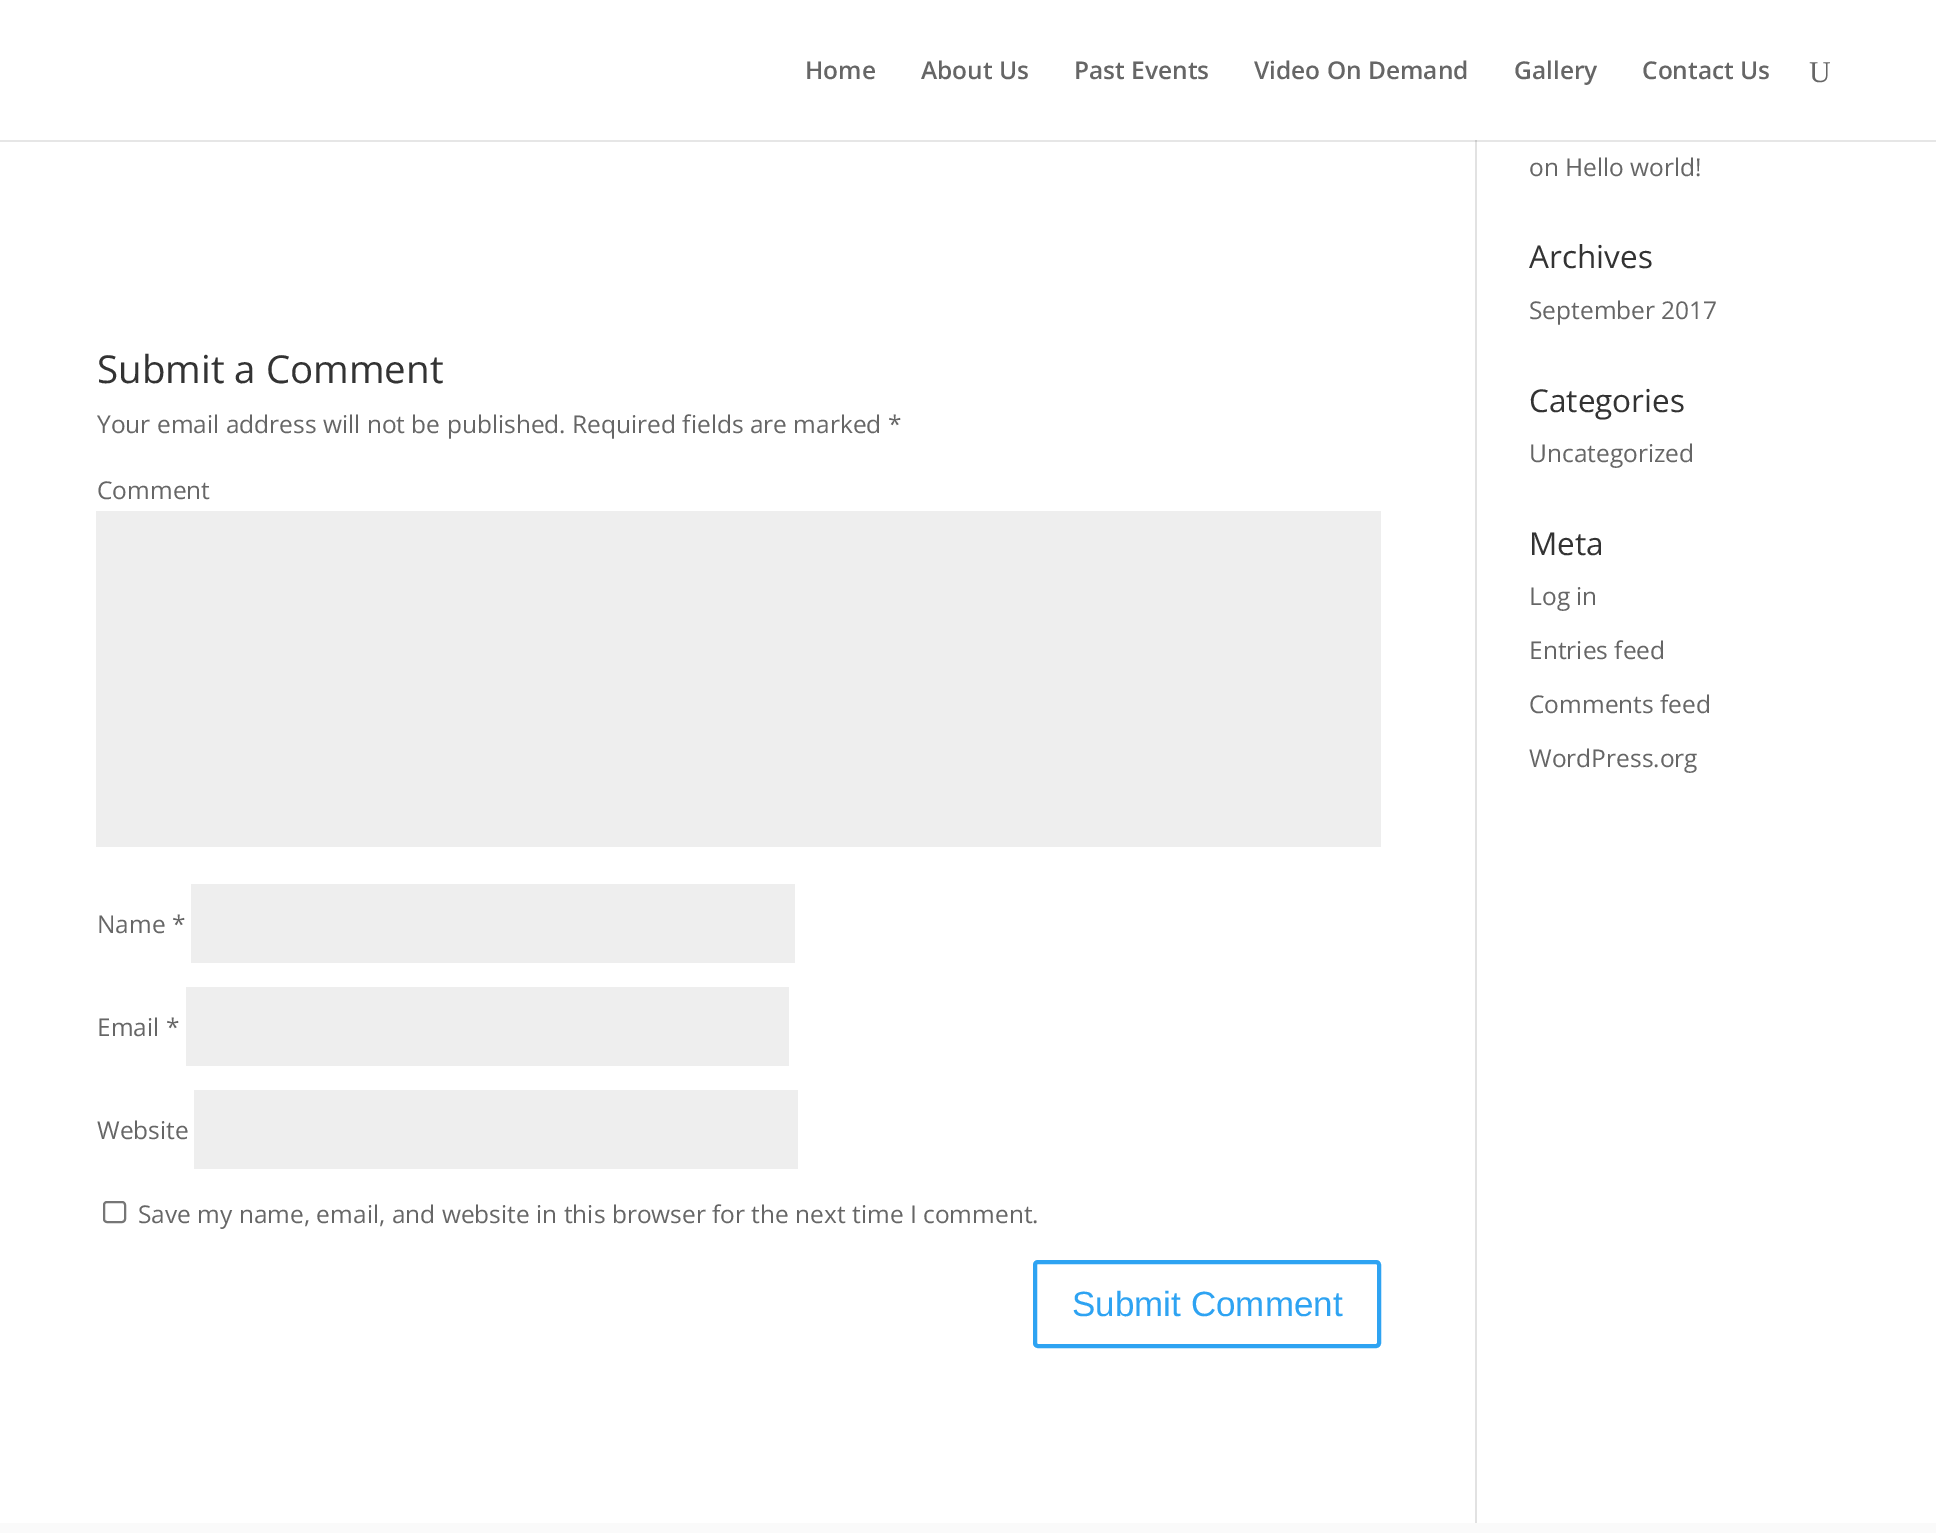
%!PS
<< /PageSize [1936 1533] >> setpagedevice
/rgb { 3 { 255 div 3 1 roll } repeat setrgbcolor } def
/font { [ exch dup neg 0 0 3 -1 roll 0 0 ] selectfont } def
/text { moveto show } def
/roundrect { 5 dict begin { /r /h /w /y /x } { exch def } forall
  x r add y moveto x w add y 2 copy h add r arct x w add y h add x 1 index r arct
  x y h add x y r arct x y 2 copy exch w add exch r arct closepath end } def
0 1533 translate 1 -1 scale
4 setmiterlimit
255 255 255 rgb
0 0 1936 1533 rectfill
230 230 230 rgb
0 140 1936 2 rectfill
226 226 226 rgb
1475 142 2 1381 rectfill
203 203 203 rgb
1475 140 2 2 rectfill
238 238 238 rgb
96 511 1285 336 rectfill
191 884 604 79 rectfill
186 987 603 79 rectfill
194 1090 604 79 rectfill
118 118 118 rgb
2 setlinewidth
104 1202 21 20 3 roundrect stroke
46 163 242 rgb
4 setlinewidth
1035 1262 344 84 3 roundrect stroke
250 250 250 rgb
0 1523 1936 10 rectfill
/OpenSans-SemiBold 24.5 font
102 102 102 rgb
(Home) 805 79 text
(About Us) 921 79 text
(Past Events) 1074 79 text
(Video On Demand) 1254 79 text
(Gallery) 1514 79 text
(Contact Us) 1642 79 text
/LiberationSerif-Regular 30 font
(U) 1809 82 text
/OpenSans-Regular 38.5 font
51 51 51 rgb
(Submit a Comment) 97 383 text
/OpenSans-Regular 24.5 font
102 102 102 rgb
(Your email address will not be published. Required fields are marked *) 97 433 text
(Comment) 97 499 text
(Name *) 97 933 text
(Email *) 97 1036 text
(Website) 97 1139 text
(Save my name, email, and website in this browser for the next time I comment.) 138 1223 text
/LiberationSans-Regular 35 font
46 163 242 rgb
(Submit Comment) 1072 1316 text
/OpenSans-Regular 24.5 font
102 102 102 rgb
(on Hello world!) 1529 176 text
/OpenSans-Regular 31.5 font
51 51 51 rgb
(Archives) 1529 268 text
/OpenSans-Regular 24.5 font
102 102 102 rgb
(September 2017) 1529 319 text
/OpenSans-Regular 31.5 font
51 51 51 rgb
(Categories) 1529 412 text
/OpenSans-Regular 24.5 font
102 102 102 rgb
(Uncategorized) 1529 462 text
/OpenSans-Regular 31.5 font
51 51 51 rgb
(Meta) 1529 555 text
/OpenSans-Regular 24.5 font
102 102 102 rgb
(Log in) 1529 605 text
(Entries feed) 1529 659 text
(Comments feed) 1529 713 text
(WordPress.org) 1529 767 text
showpage
